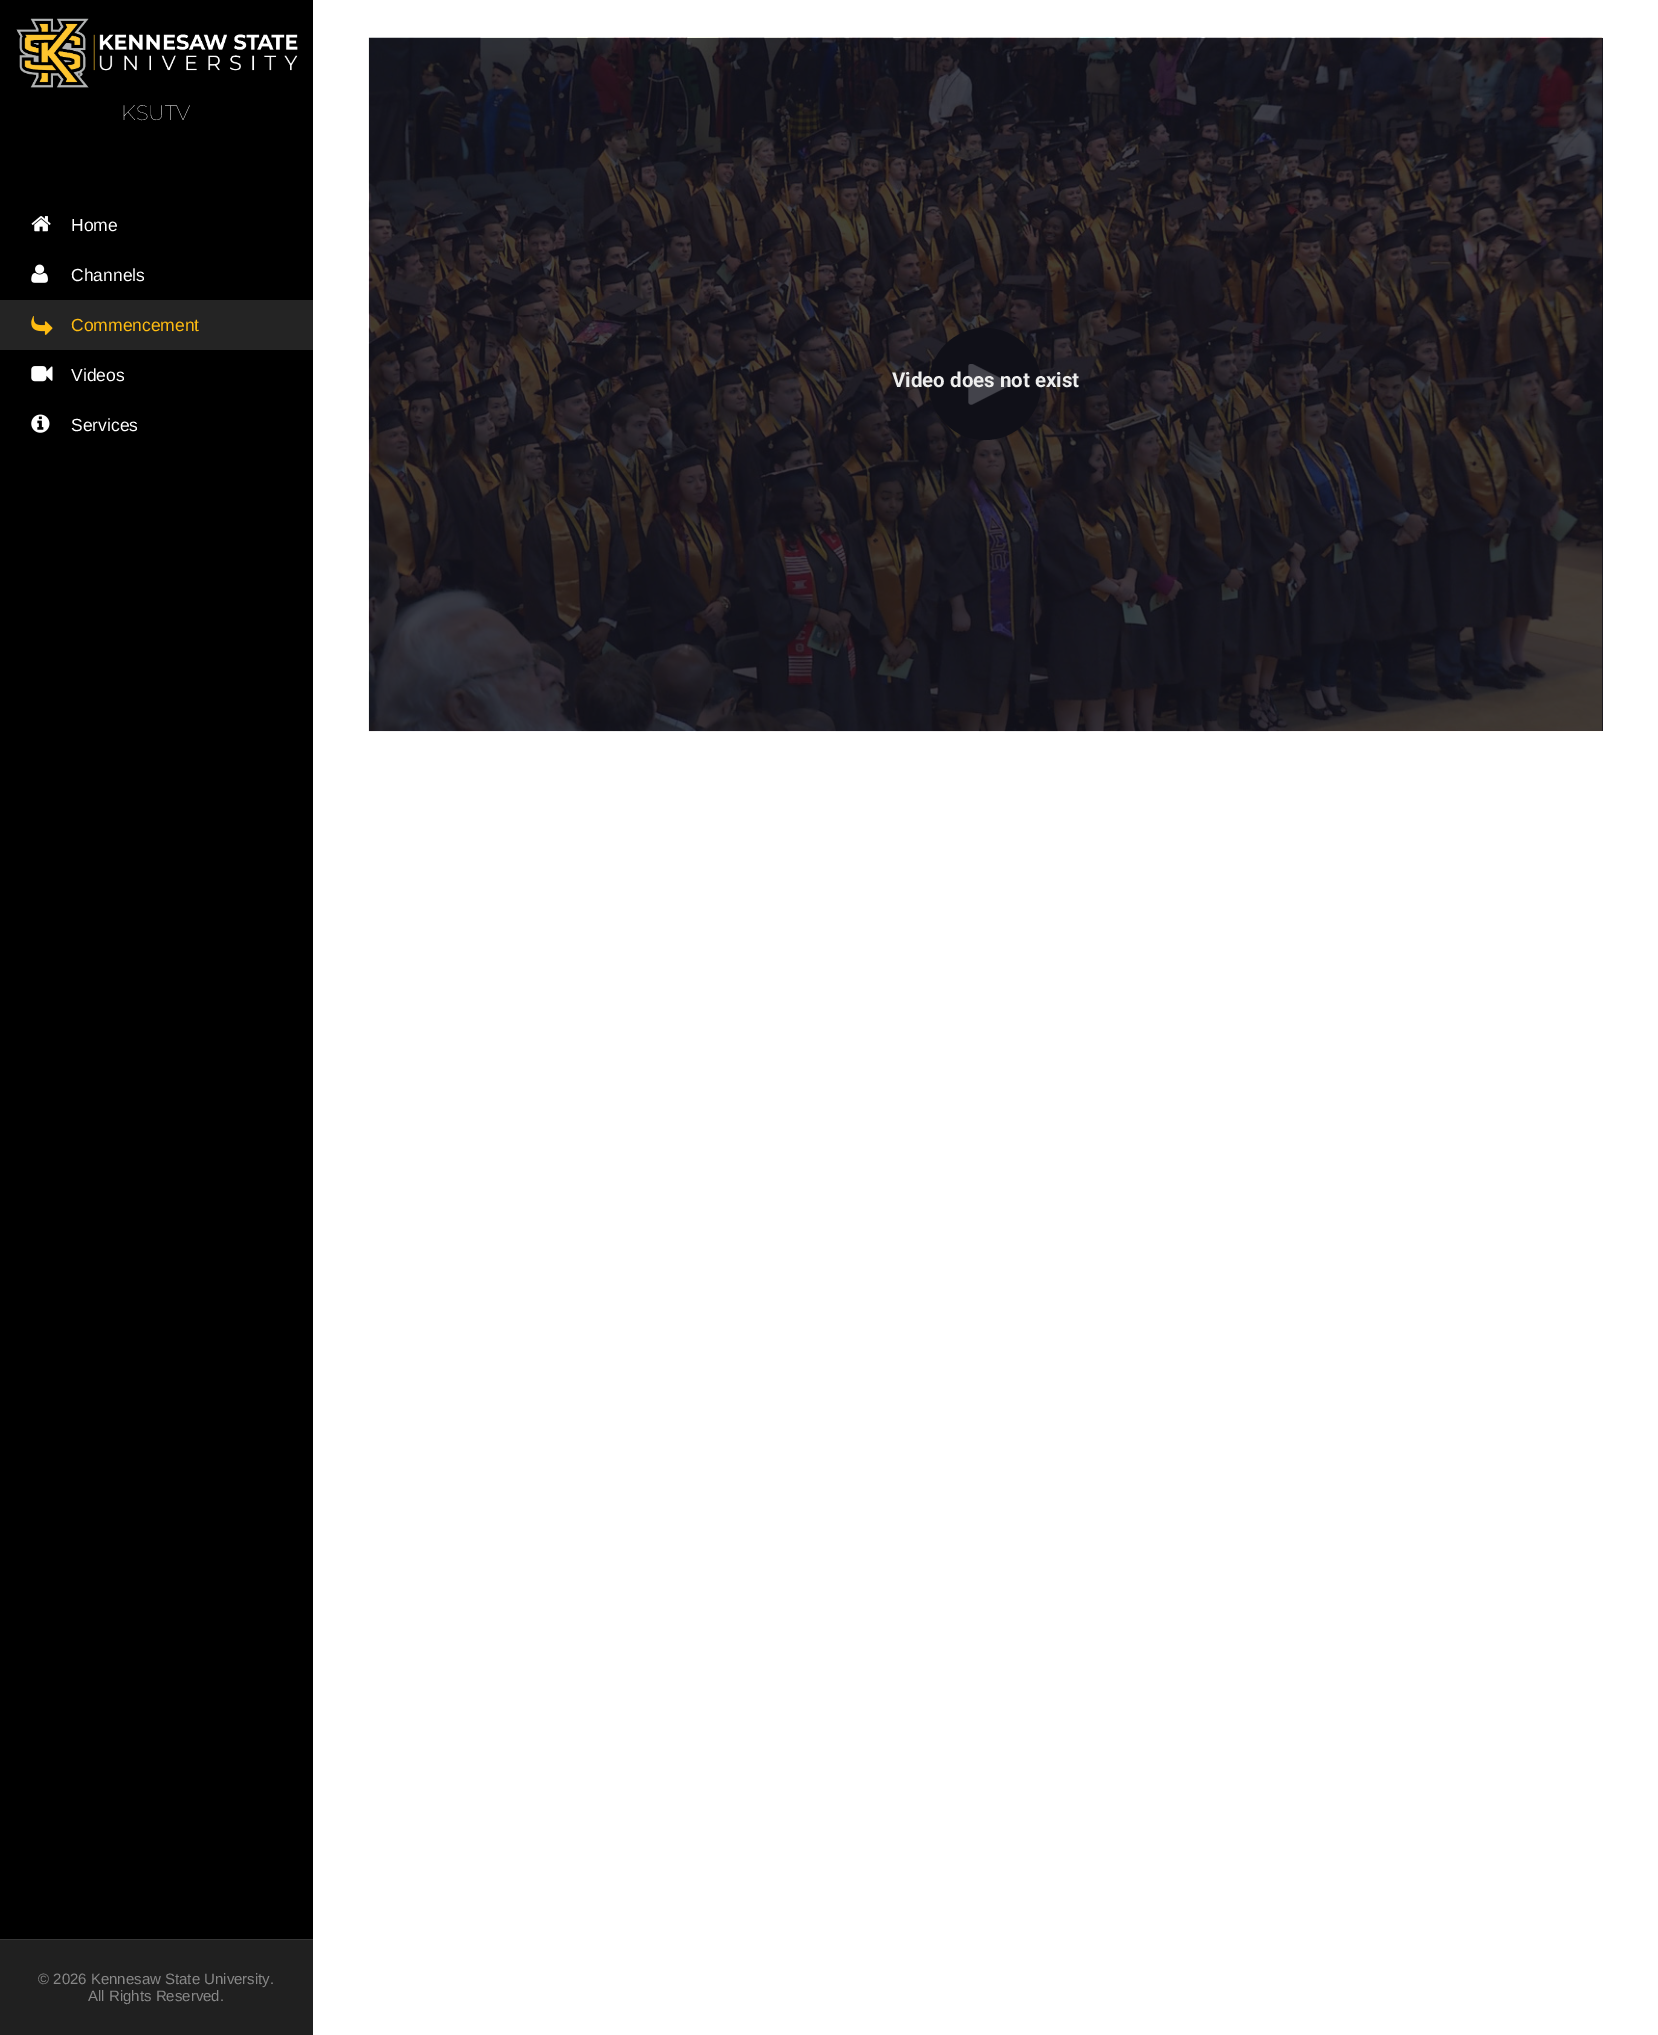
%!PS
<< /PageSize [1658 2035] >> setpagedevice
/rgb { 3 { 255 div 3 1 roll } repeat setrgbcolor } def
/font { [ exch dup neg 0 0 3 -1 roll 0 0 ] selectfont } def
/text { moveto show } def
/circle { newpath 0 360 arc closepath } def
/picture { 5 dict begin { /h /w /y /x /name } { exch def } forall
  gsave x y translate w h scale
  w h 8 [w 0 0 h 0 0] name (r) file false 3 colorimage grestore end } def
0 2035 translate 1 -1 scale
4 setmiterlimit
255 255 255 rgb
0 0 1658 2035 rectfill
0 0 0 rgb
0 0 313 1939 rectfill
(img_01.rgb) 16 18 282 70 picture
(img_02.rgb) 31 216 20 16 picture
(img_03.rgb) 31 264 17 19 picture
36 36 36 rgb
0 300 313 50 rectfill
(img_04.rgb) 31 316 22 19 picture
(img_05.rgb) 31 366 22 16 picture
(img_06.rgb) 31 414 19 19 picture
32 32 32 rgb
0 1940 313 95 rectfill
53 53 53 rgb
0 1939 313 1 rectfill
16 16 24 rgb
1602 38 1 693 rectfill
(img_07.rgb) 368 37 1235 695 picture
985 384 56 circle fill
(img_08.rgb) 968 364 42 41 picture
/Montserrat-Thin 21 font
255 255 255 rgb
(KSUTV) 121 120 text
/LiberationSans-Regular 17.5 font
(Home) 71 231 text
(Channels) 71 281 text
254 188 17 rgb
(Commencement) 71 331 text
255 255 255 rgb
(Videos) 71 381 text
(Services) 71 431 text
/LiberationSans-Regular 15 font
136 136 136 rgb
(© 2026 Kennesaw State University.) 38 1984 text
(All Rights Reserved.) 88 2001 text
/Roboto-Bold 20.5 font
238 238 238 rgb
(Video does not exist) 892 387 text
showpage
